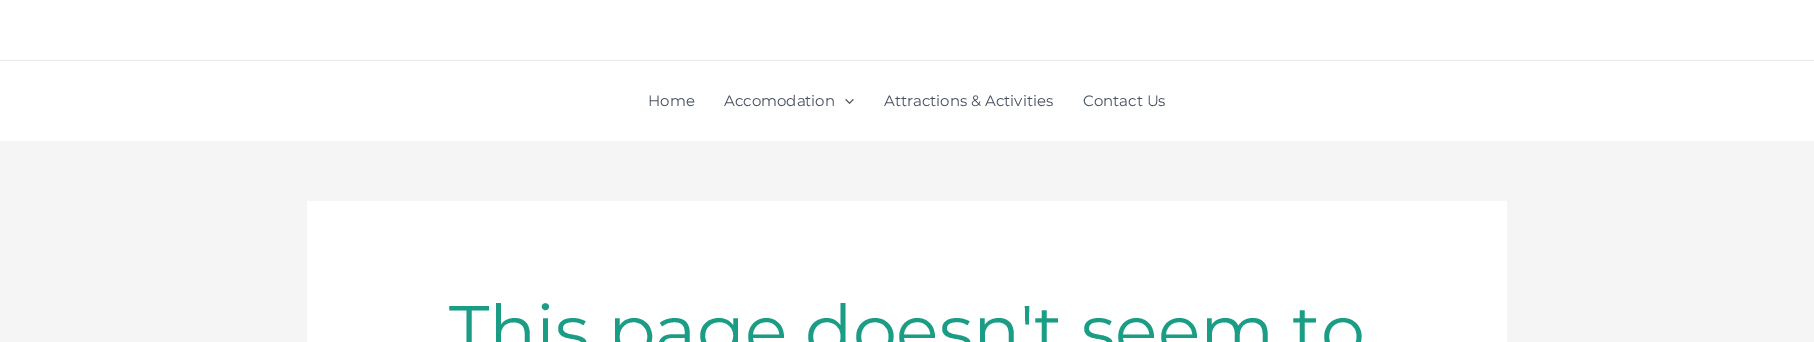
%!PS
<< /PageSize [1814 342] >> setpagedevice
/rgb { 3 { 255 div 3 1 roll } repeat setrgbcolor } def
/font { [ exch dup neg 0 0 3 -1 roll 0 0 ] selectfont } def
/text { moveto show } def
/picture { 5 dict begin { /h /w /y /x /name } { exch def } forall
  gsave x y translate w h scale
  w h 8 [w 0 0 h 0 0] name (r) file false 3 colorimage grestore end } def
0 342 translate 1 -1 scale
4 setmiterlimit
245 245 245 rgb
0 0 1814 342 rectfill
255 255 255 rgb
0 0 1814 60 rectfill
234 234 234 rgb
0 60 1814 1 rectfill
255 255 255 rgb
0 61 1814 80 rectfill
(img_01.rgb) 845 99 9 5 picture
307 201 1200 141 rectfill
/Montserrat-Regular 15 font
69 79 94 rgb
(Home) 648 106 text
(Accomodation) 724 106 text
(Attractions & Activities) 884 106 text
(Contact Us) 1083 106 text
/Montserrat-Regular 70 font
27 156 133 rgb
(This page doesn't seem to) 449 355 text
showpage
